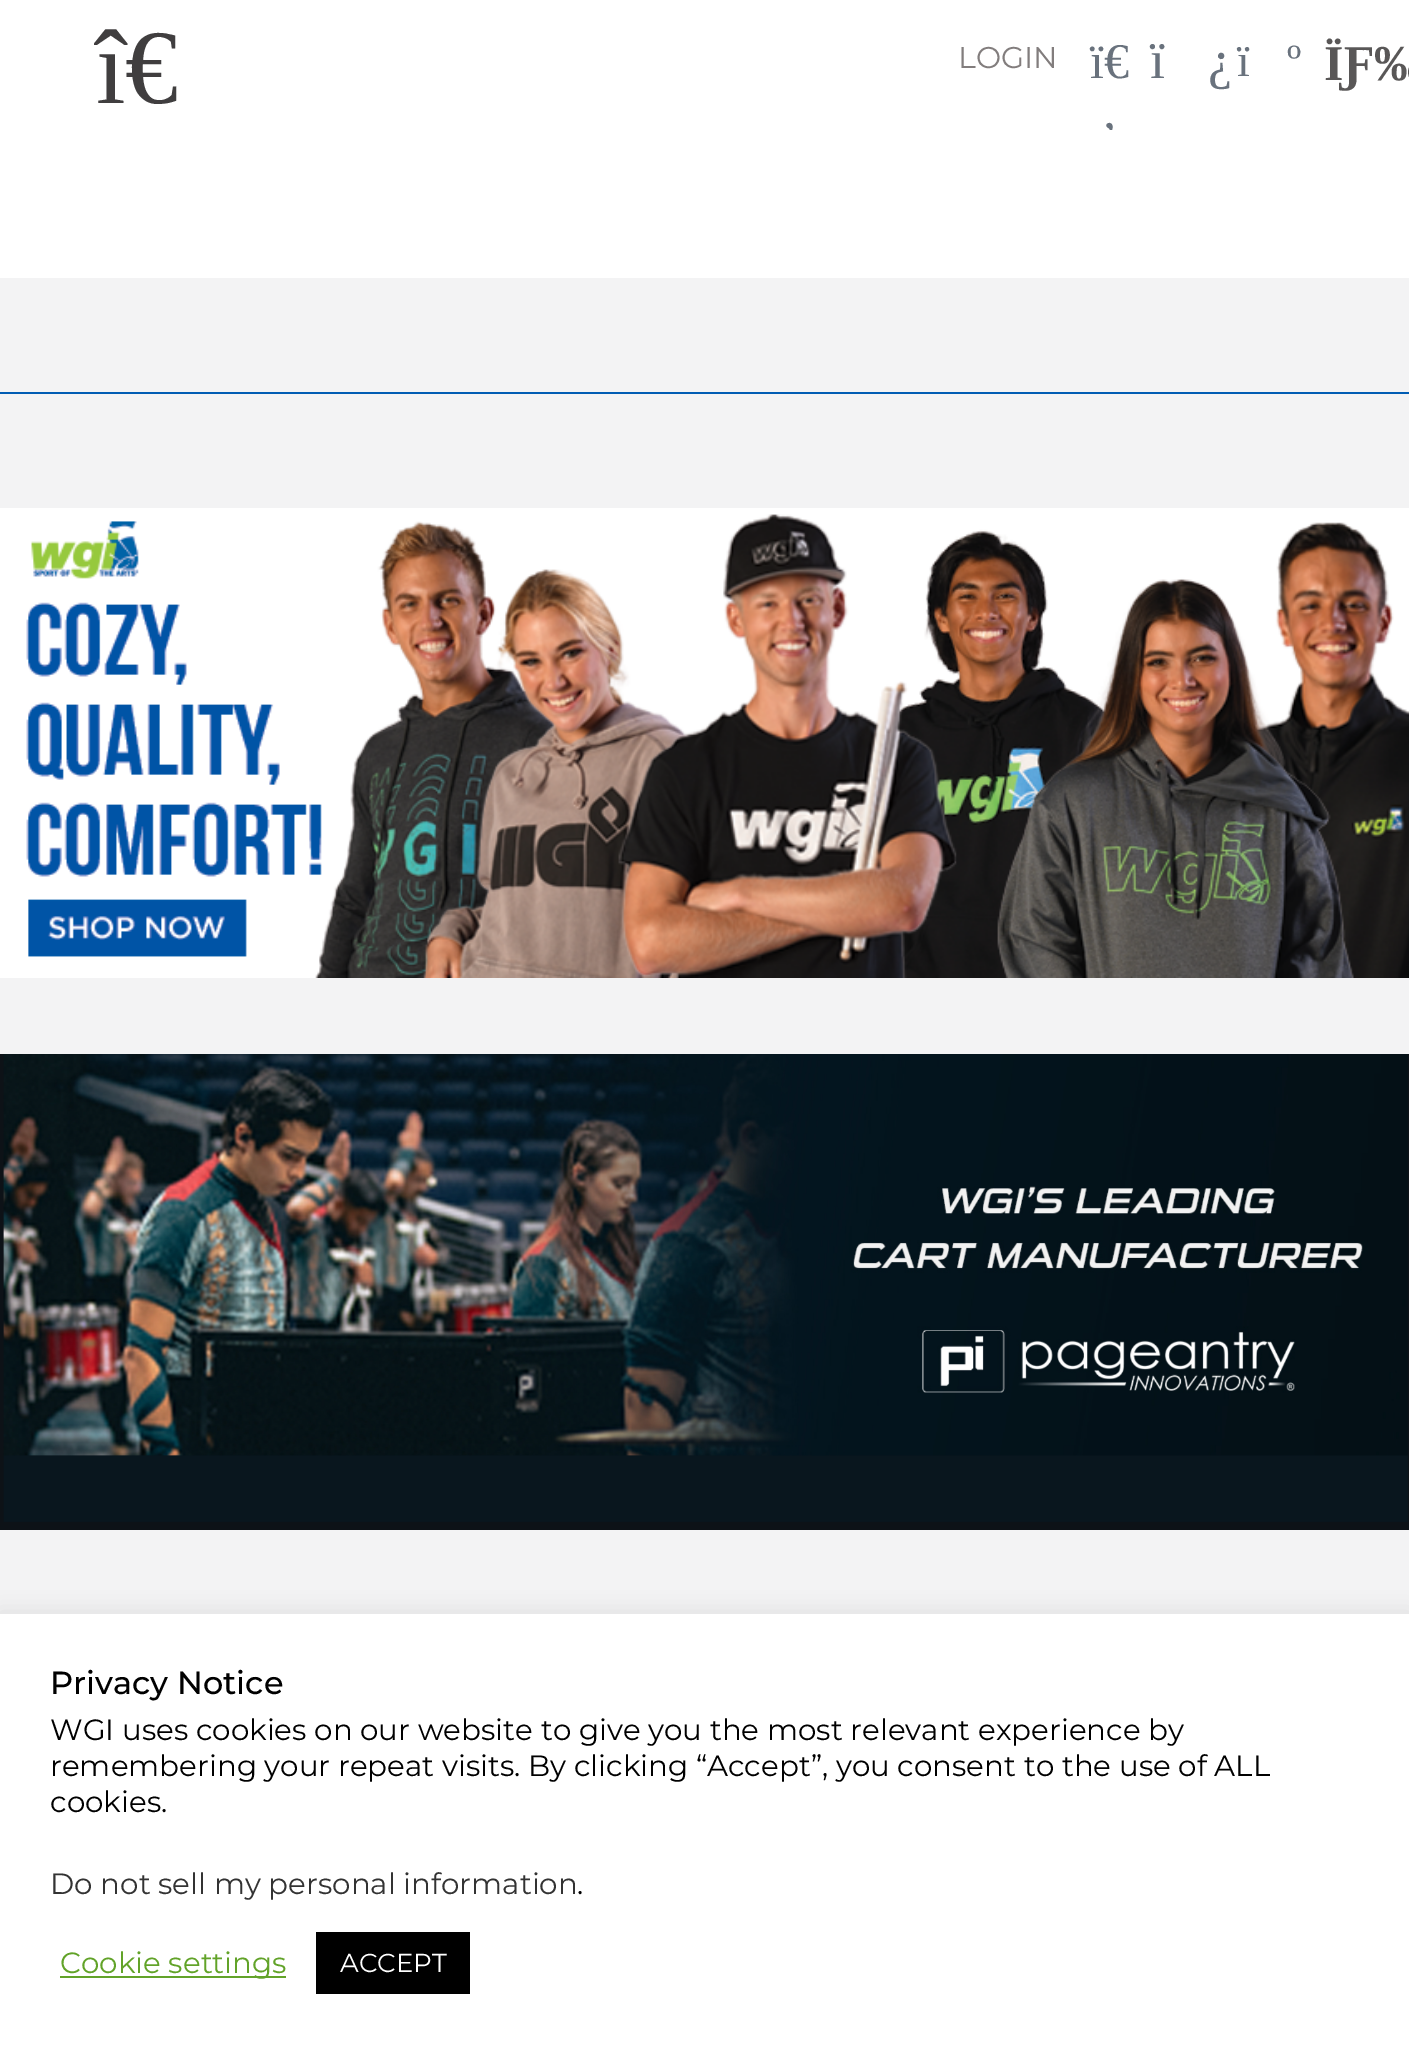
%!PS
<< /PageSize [1409 2054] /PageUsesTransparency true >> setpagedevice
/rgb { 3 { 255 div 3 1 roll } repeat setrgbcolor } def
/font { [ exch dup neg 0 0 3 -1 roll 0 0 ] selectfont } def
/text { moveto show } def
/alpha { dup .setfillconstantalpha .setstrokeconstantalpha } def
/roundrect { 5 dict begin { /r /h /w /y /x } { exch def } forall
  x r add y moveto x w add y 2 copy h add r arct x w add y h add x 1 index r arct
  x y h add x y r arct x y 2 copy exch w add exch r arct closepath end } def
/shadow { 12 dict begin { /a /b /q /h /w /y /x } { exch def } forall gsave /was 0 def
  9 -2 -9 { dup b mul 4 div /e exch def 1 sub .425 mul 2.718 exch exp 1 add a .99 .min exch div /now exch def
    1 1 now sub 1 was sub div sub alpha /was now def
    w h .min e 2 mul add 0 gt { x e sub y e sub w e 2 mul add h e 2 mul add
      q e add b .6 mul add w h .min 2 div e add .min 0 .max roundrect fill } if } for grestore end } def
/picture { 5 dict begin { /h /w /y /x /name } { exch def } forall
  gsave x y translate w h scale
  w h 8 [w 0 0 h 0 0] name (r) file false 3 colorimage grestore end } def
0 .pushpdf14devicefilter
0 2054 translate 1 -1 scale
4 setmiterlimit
243 243 244 rgb
0 0 1409 2054 rectfill
255 255 255 rgb
0 0 1409 278 rectfill
0 92 179 rgb
0 392 1409 2 rectfill
(img_01.rgb) 0 508 1409 470 picture
(img_02.rgb) 0 1054 1409 476 picture
172 171 171 rgb
0 1612 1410 440 0 10 0.3 shadow
255 255 255 rgb
0 1614 1409 440 rectfill
98 163 41 rgb
60 1976 226 2 rectfill
0 0 0 rgb
316 1932 154 62 rectfill
/LiberationSerif-Regular 106 font
64 62 63 rgb
(î€) 96 103 text
/Montserrat-Regular 30 font
130 125 125 rgb
(LOGIN) 958 68 text
/LiberationSerif-Regular 50 font
105 114 125 rgb
(ï€) 1090 78 text
gsave
0 0 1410 130 rectclip
(‚) 1101 128 text
grestore
/LiberationSerif-Regular 54 font
(ï) 1150 78 text
(¿) 1208 78 text
/LiberationSerif-Regular 46 font
(ï) 1237 76 text
(º) 1287 76 text
/LiberationSerif-Bold 50 font
89 87 87 rgb
(ÏƑ‰) 1324 80 text
/Montserrat-Medium 32 font
0 0 0 rgb
(Privacy Notice) 50 1694 text
/Montserrat-Regular 29.35 font
(WGI uses cookies on our website to give you the most relevant experience by) 50 1740 text
(remembering your repeat visits. By clicking “Accept”, you consent to the use of ALL) 50 1776 text
(cookies.) 50 1812 text
51 51 51 rgb
(Do not sell my personal information) 50 1894 text
0 0 0 rgb
(.) 577 1894 text
98 163 41 rgb
(Cookie settings) 60 1973 text
/Montserrat-Regular 26 font
255 255 255 rgb
(ACCEPT) 340 1972 text
.poppdf14devicefilter showpage
